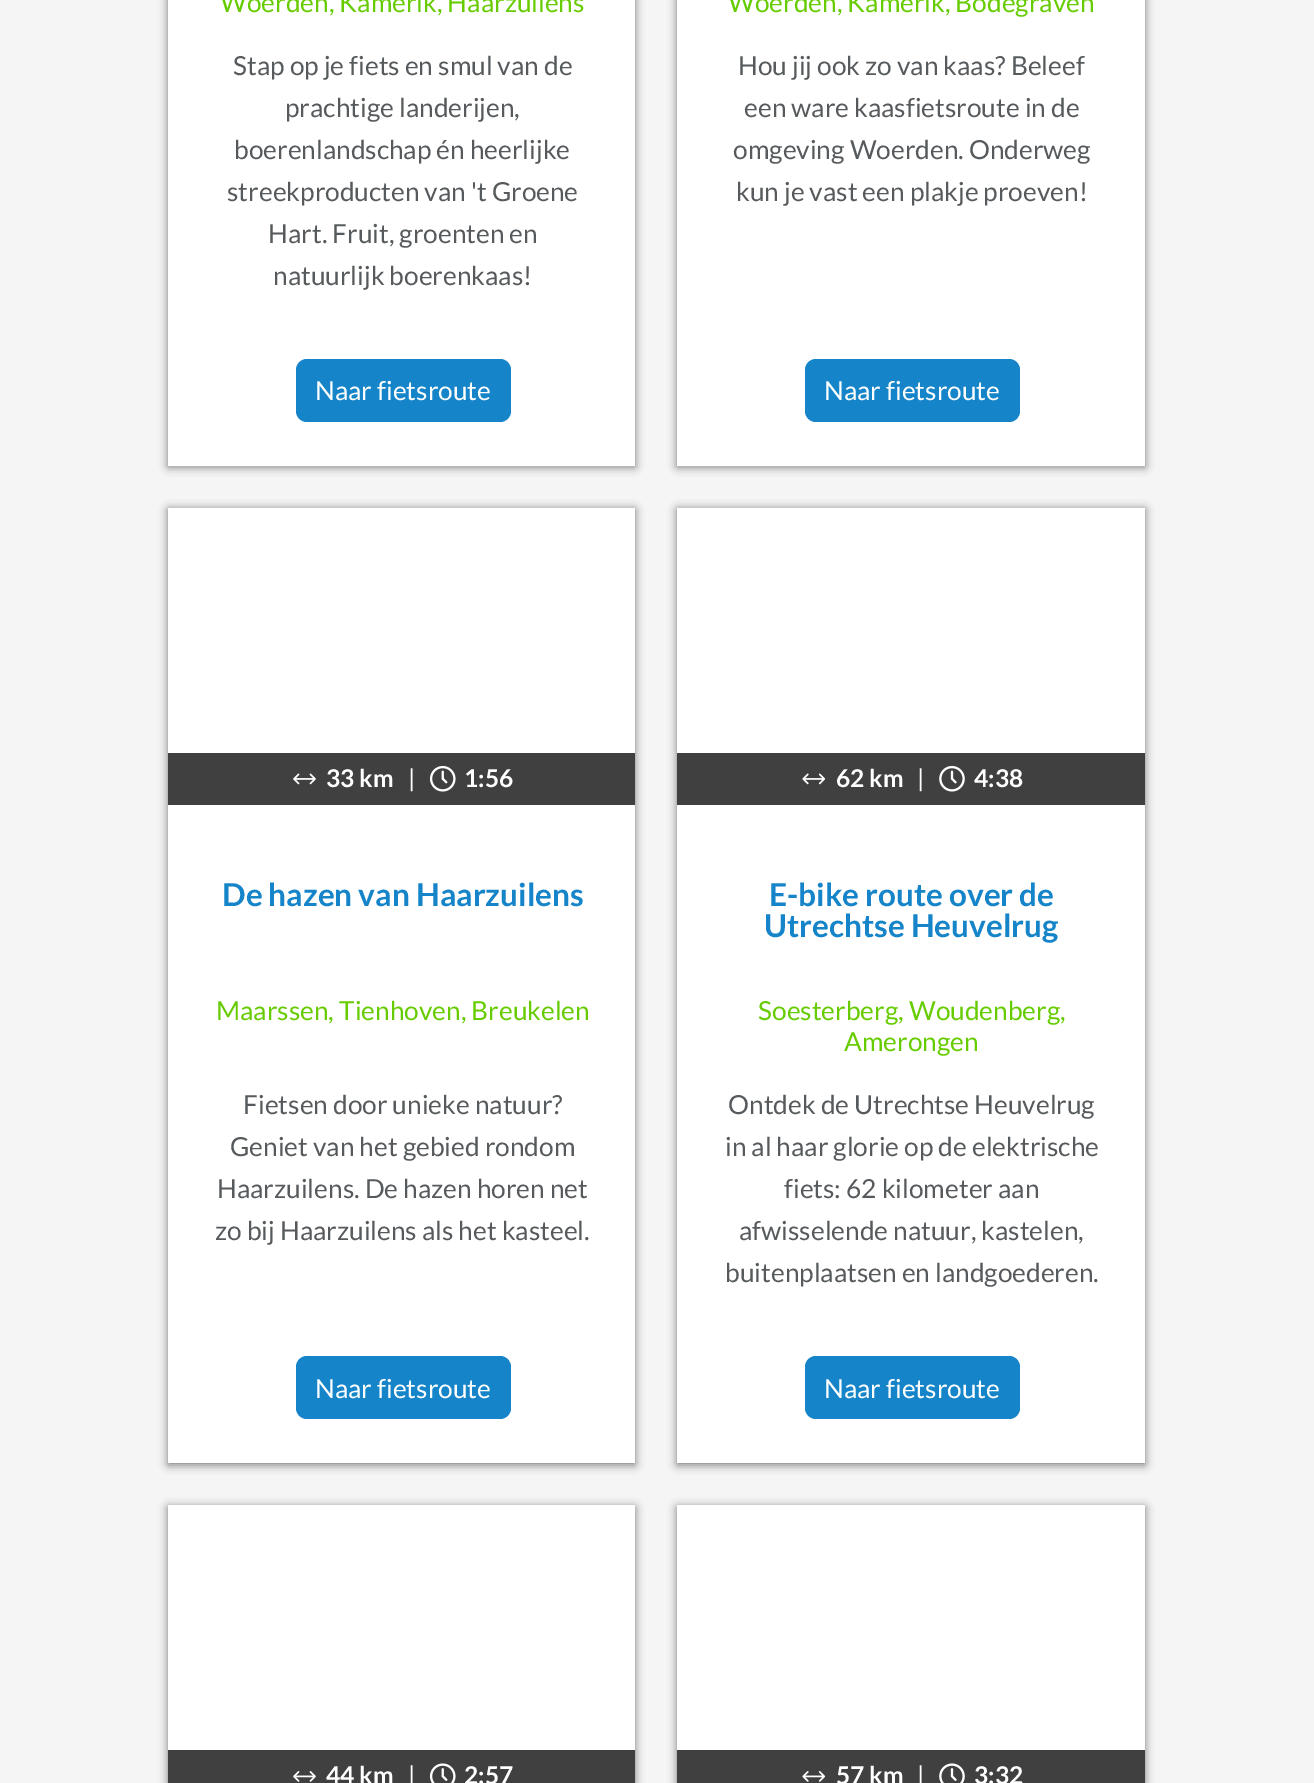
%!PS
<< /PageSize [1314 1783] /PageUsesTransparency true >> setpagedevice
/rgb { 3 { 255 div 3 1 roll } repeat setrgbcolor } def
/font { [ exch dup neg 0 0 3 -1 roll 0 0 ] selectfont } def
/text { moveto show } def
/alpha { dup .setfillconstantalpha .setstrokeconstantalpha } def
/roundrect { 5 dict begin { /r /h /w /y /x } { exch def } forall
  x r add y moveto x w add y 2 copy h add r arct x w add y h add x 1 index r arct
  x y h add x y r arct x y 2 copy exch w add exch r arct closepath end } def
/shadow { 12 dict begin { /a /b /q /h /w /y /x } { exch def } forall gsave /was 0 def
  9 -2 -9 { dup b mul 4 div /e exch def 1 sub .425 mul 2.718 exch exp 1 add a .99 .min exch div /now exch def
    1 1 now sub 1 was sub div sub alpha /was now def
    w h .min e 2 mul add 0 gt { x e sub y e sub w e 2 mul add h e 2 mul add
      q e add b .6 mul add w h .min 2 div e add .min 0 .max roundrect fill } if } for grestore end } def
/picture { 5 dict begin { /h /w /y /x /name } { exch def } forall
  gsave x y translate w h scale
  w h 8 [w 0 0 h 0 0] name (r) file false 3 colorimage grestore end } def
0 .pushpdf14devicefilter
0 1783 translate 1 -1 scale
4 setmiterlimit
245 245 245 rgb
0 0 1314 1783 rectfill
0 0 0 rgb
168 -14 467 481 0 4.5 0.5 shadow
255 255 255 rgb
168 0 467 466 rectfill
21 132 200 rgb
296 359 215 63 11 roundrect fill
0 0 0 rgb
677 -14 468 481 0 4.5 0.5 shadow
255 255 255 rgb
677 0 468 466 rectfill
21 132 200 rgb
805 359 215 63 11 roundrect fill
0 0 0 rgb
168 509 467 956 0 4.5 0.5 shadow
255 255 255 rgb
168 508 467 955 rectfill
64 64 64 rgb
168 753 467 52 rectfill
(img_01.rgb) 293 773 23 12 picture
(img_02.rgb) 429 765 27 27 picture
21 132 200 rgb
296 1356 215 63 11 roundrect fill
0 0 0 rgb
677 509 468 956 0 4.5 0.5 shadow
255 255 255 rgb
677 508 468 955 rectfill
64 64 64 rgb
677 753 468 52 rectfill
(img_03.rgb) 802 773 24 12 picture
(img_04.rgb) 939 765 26 27 picture
21 132 200 rgb
805 1356 215 63 11 roundrect fill
0 0 0 rgb
168 1507 467 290 0 4.5 0.5 shadow
255 255 255 rgb
168 1505 467 245 rectfill
64 64 64 rgb
168 1750 467 33 rectfill
(img_05.rgb) 293 1771 23 11 picture
(img_06.rgb) 429 1763 27 20 picture
0 0 0 rgb
677 1507 468 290 0 4.5 0.5 shadow
255 255 255 rgb
677 1505 468 245 rectfill
64 64 64 rgb
677 1750 468 33 rectfill
(img_07.rgb) 802 1771 24 11 picture
(img_08.rgb) 939 1763 26 20 picture
/Lato-Regular 26.25 font
102 204 0 rgb
(Woerden, Kamerik, Haarzuilens) 220 12 text
86 90 92 rgb
(Stap op je fiets en smul van de) 233 75 text
(prachtige landerijen,) 285 117 text
(boerenlandschap én heerlijke) 234 159 text
(streekproducten van 't Groene) 227 201 text
(Hart. Fruit, groenten en) 268 243 text
(natuurlijk boerenkaas!) 273 285 text
255 255 255 rgb
(Naar fietsroute) 315 400 text
102 204 0 rgb
(Woerden, Kamerik, Bodegraven) 728 12 text
86 90 92 rgb
(Hou jij ook zo van kaas? Beleef) 738 75 text
(een ware kaasfietsroute in de) 744 117 text
(omgeving Woerden. Onderweg) 733 159 text
(kun je vast een plakje proeven!) 736 201 text
255 255 255 rgb
(Naar fietsroute) 824 400 text
/Lato-Bold 24.5 font
(33 km) 326 787 text
/Lato-Regular 24.5 font
(|) 408 787 text
/Lato-Bold 24.5 font
(1:56) 464 787 text
/Lato-Bold 31.5 font
21 132 200 rgb
(De hazen van Haarzuilens) 222 906 text
/Lato-Regular 26.25 font
102 204 0 rgb
(Maarssen, Tienhoven, Breukelen) 216 1020 text
86 90 92 rgb
(Fietsen door unieke natuur?) 243 1114 text
(Geniet van het gebied rondom) 230 1156 text
(Haarzuilens. De hazen horen net) 217 1198 text
(zo bij Haarzuilens als het kasteel.) 215 1240 text
255 255 255 rgb
(Naar fietsroute) 315 1398 text
/Lato-Bold 24.5 font
(62 km) 836 787 text
/Lato-Regular 24.5 font
(|) 917 787 text
/Lato-Bold 24.5 font
(4:38) 974 787 text
/Lato-Bold 31.5 font
21 132 200 rgb
(E-bike route over de) 769 906 text
(Utrechtse Heuvelrug) 764 937 text
/Lato-Regular 26.25 font
102 204 0 rgb
(Soesterberg, Woudenberg,) 758 1020 text
(Amerongen) 844 1051 text
86 90 92 rgb
(Ontdek de Utrechtse Heuvelrug) 728 1114 text
(in al haar glorie op de elektrische) 725 1156 text
(fiets: 62 kilometer aan) 784 1198 text
(afwisselende natuur, kastelen,) 739 1240 text
(buitenplaatsen en landgoederen.) 725 1282 text
255 255 255 rgb
(Naar fietsroute) 824 1398 text
/Lato-Bold 24.5 font
(44 km) 326 1784 text
/Lato-Regular 24.5 font
(|) 408 1784 text
/Lato-Bold 24.5 font
(2:57) 464 1784 text
(57 km) 836 1784 text
/Lato-Regular 24.5 font
(|) 917 1784 text
/Lato-Bold 24.5 font
(3:32) 974 1784 text
.poppdf14devicefilter showpage
